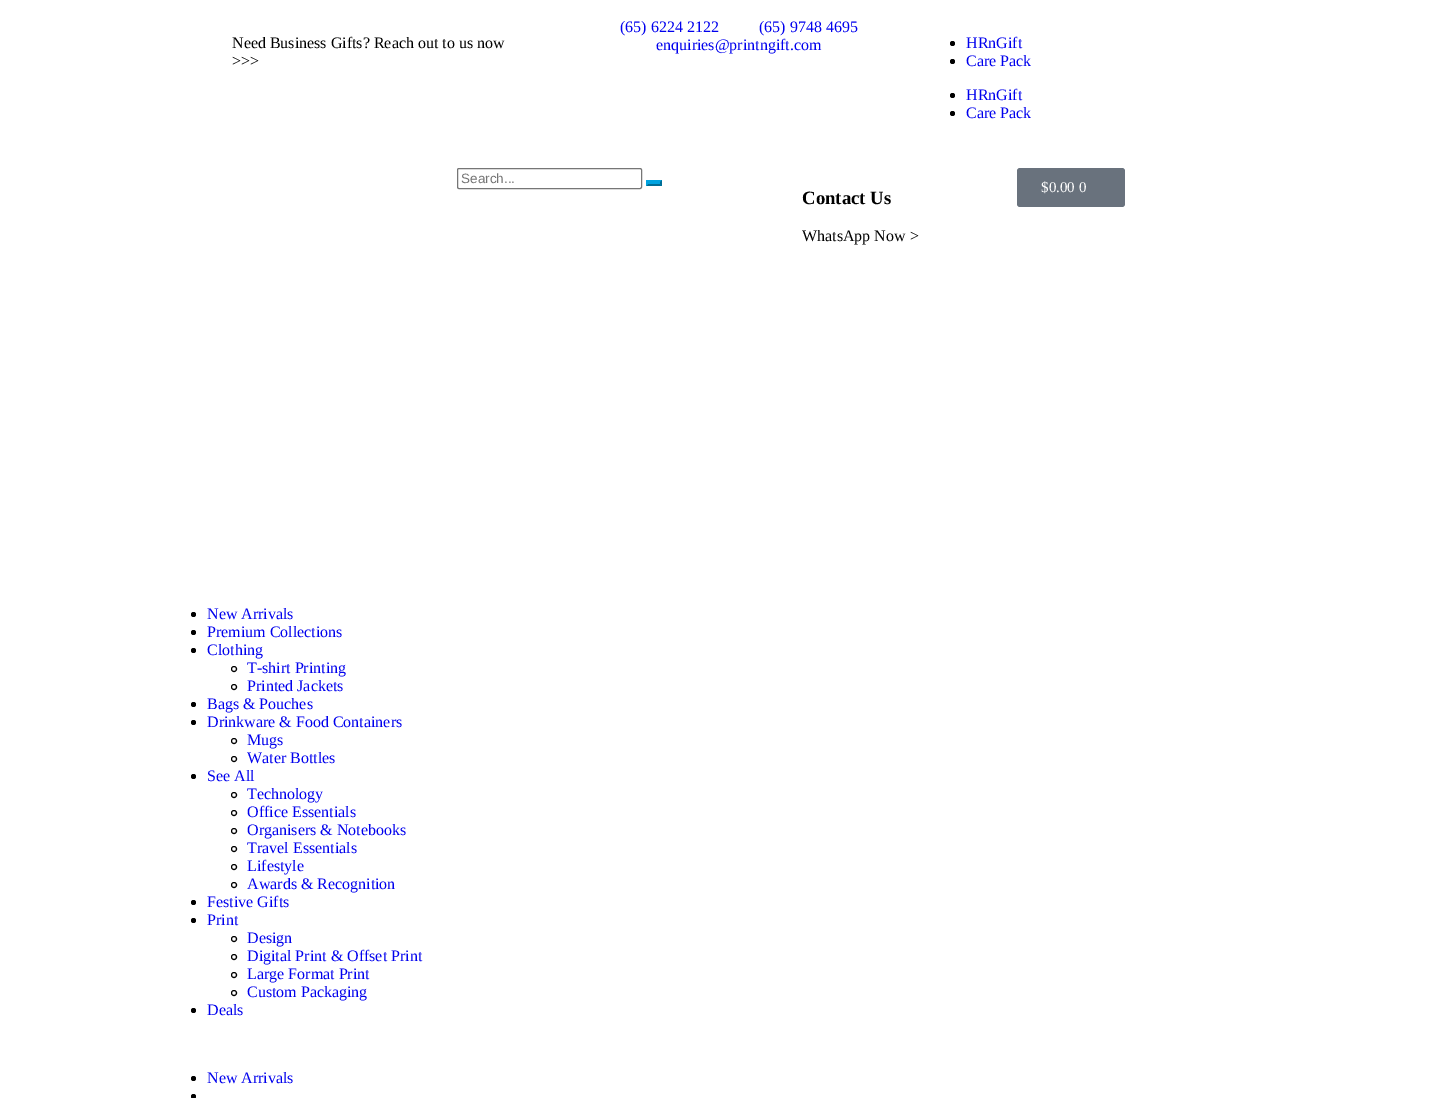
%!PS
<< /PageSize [1453 1098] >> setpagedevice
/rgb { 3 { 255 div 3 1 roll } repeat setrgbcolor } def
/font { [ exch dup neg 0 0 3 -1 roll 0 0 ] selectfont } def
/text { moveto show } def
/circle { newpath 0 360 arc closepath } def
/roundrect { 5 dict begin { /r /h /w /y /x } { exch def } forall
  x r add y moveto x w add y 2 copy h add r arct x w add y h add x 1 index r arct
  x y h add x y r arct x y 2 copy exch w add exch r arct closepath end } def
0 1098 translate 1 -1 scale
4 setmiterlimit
255 255 255 rgb
0 0 1453 1098 rectfill
0 0 0 rgb
952.5 43.5 2.5 circle fill
952.5 61.5 2.5 circle fill
952.5 95.5 2.5 circle fill
952.5 113.5 2.5 circle fill
118 118 118 rgb
457.5 168.5 184 20 1.5 roundrect stroke
0 163 224 rgb
646 180 16 6 rectfill
0 109 149 rgb
662 180 moveto 0 6 rlineto -2 -2 rlineto 0 -2 rlineto closepath fill
662 186 moveto -16 0 rlineto 2 -2 rlineto 12 0 rlineto closepath fill
0 163 224 rgb
646 186 moveto 0 -6 rlineto 2 2 rlineto 0 2 rlineto closepath fill
105 114 125 rgb
1017 168 108 39 3 roundrect fill
0 0 0 rgb
193.5 614.5 2.5 circle fill
193.5 632.5 2.5 circle fill
193.5 650.5 2.5 circle fill
234 669 2.5 circle stroke
234 687 2.5 circle stroke
193.5 704.5 2.5 circle fill
193.5 722.5 2.5 circle fill
234 741 2.5 circle stroke
234 759 2.5 circle stroke
193.5 776.5 2.5 circle fill
234 795 2.5 circle stroke
234 813 2.5 circle stroke
234 831 2.5 circle stroke
234 849 2.5 circle stroke
234 867 2.5 circle stroke
234 885 2.5 circle stroke
193.5 902.5 2.5 circle fill
193.5 920.5 2.5 circle fill
234 939 2.5 circle stroke
234 957 2.5 circle stroke
234 975 2.5 circle stroke
234 993 2.5 circle stroke
193.5 1010.5 2.5 circle fill
193.5 1078.5 2.5 circle fill
193.5 1096.5 2.5 circle fill
/LiberationSerif-Regular 16 font
(Need Business Gifts? Reach out to us now) 232 48 text
(>>>) 232 66 text
0 0 238 rgb
(\(65\) 6224 2122) 620 32 text
(\(65\) 9748 4695) 759 32 text
(enquiries@printngift.com) 656 50 text
(HRnGift) 966 48 text
(Care Pack) 966 66 text
(HRnGift) 966 100 text
(Care Pack) 966 118 text
/LiberationSans-Regular 13.5 font
117 117 117 rgb
(Search...) 461 183 text
/LiberationSerif-Regular 15 font
255 255 255 rgb
($0.00 0) 1041 192 text
/LiberationSerif-Bold 18.75 font
0 0 0 rgb
(Contact Us) 802 204 text
/LiberationSerif-Regular 16 font
(WhatsApp Now >) 802 241 text
0 0 238 rgb
(New Arrivals) 207 619 text
(Premium Collections) 207 637 text
(Clothing) 207 655 text
(T-shirt Printing) 247 673 text
(Printed Jackets) 247 691 text
(Bags & Pouches) 207 709 text
(Drinkware & Food Containers) 207 727 text
(Mugs) 247 745 text
(Water Bottles) 247 763 text
(See All) 207 781 text
(Technology) 247 799 text
(Office Essentials) 247 817 text
(Organisers & Notebooks) 247 835 text
(Travel Essentials) 247 853 text
(Lifestyle) 247 871 text
(Awards & Recognition) 247 889 text
(Festive Gifts) 207 907 text
(Print) 207 925 text
(Design) 247 943 text
(Digital Print & Offset Print) 247 961 text
(Large Format Print) 247 979 text
(Custom Packaging) 247 997 text
(Deals) 207 1015 text
(New Arrivals) 207 1083 text
showpage
